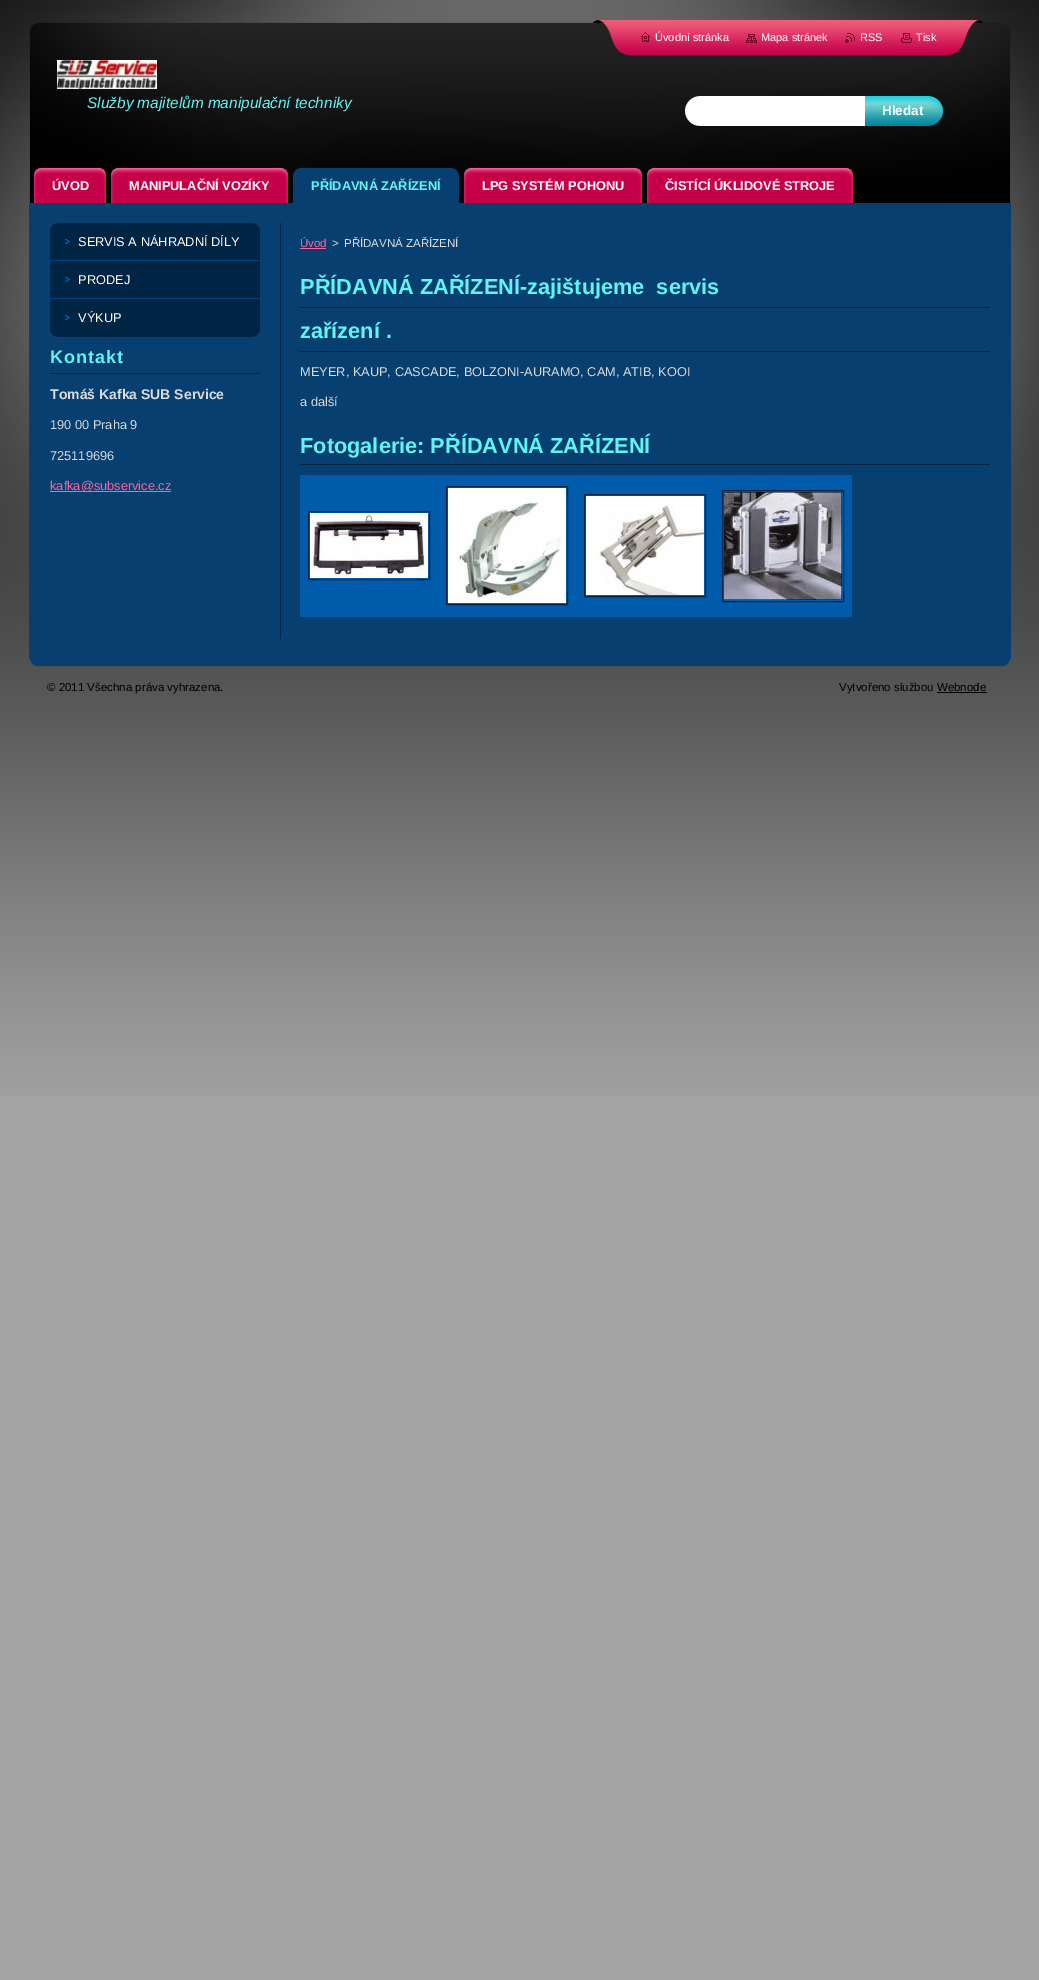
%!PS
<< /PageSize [1039 1980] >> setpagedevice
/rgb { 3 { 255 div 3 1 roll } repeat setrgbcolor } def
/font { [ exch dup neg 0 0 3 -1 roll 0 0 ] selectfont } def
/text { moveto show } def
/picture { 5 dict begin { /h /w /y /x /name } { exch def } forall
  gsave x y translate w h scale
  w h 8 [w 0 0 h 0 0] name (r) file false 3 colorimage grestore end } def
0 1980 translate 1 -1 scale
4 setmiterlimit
164 164 164 rgb
0 0 1039 1980 rectfill
(img_01.rgb) 0 664 1039 432 picture
(img_02.rgb) 0 0 1039 664 picture
(img_09.rgb) 29 22 982 181 picture
(img_03.rgb) 593 20 37 35 picture
(img_04.rgb) 630 20 353 35 picture
(img_05.rgb) 641 32 9 10 picture
(img_06.rgb) 746 34 11 9 picture
(img_07.rgb) 845 33 10 10 picture
(img_08.rgb) 901 33 11 10 picture
(img_10.rgb) 57 60 100 29 picture
(img_11.rgb) 685 96 180 30 picture
(img_12.rgb) 865 96 78 30 picture
(img_13.rgb) 34 168 8 35 picture
(img_14.rgb) 42 168 64 35 picture
(img_15.rgb) 111 168 8 35 picture
(img_16.rgb) 119 168 169 35 picture
(img_17.rgb) 293 168 8 35 picture
(img_18.rgb) 301 168 158 35 picture
(img_19.rgb) 464 168 8 35 picture
(img_20.rgb) 472 168 170 35 picture
(img_21.rgb) 647 168 8 35 picture
(img_22.rgb) 655 168 198 35 picture
(img_23.rgb) 29 659 982 8 picture
7 64 112 rgb
29 203 982 456 rectfill
0 36 67 rgb
280 223 1 416 rectfill
50 230 210 30 rectfill
(img_24.rgb) 50 223 210 7 picture
0 66 122 rgb
50 260 210 1 rectfill
(img_25.rgb) 65 239 5 5 picture
0 36 67 rgb
50 261 210 37 rectfill
0 66 122 rgb
50 298 210 1 rectfill
(img_25.rgb) 65 277 5 5 picture
0 36 67 rgb
50 299 210 31 rectfill
(img_26.rgb) 50 330 210 7 picture
(img_25.rgb) 65 315 5 5 picture
50 373 210 1 rectfill
255 99 157 rgb
50 491 121 1 rectfill
300 248 26 1 rectfill
0 36 67 rgb
300 307 690 1 rectfill
300 351 690 1 rectfill
300 464 690 1 rectfill
0 91 170 rgb
300 475 552 142 rectfill
0 36 67 rgb
308.5 511.5 121 68 rectstroke
(img_27.rgb) 310 513 118 65 picture
446.5 486.5 121 118 rectstroke
(img_28.rgb) 448 488 118 115 picture
584.5 494.5 121 102 rectstroke
(img_29.rgb) 586 496 118 99 picture
722.5 490.5 121 111 rectstroke
(img_30.rgb) 724 492 118 108 picture
0 0 0 rgb
937 692 50 1 rectfill
/LiberationSans-Regular 11 font
255 255 255 rgb
(Úvodní stránka) 655 41 text
(Mapa stránek) 761 41 text
(RSS) 860 41 text
(Tisk) 916 41 text
/LiberationSans-Italic 15.4 font
96 244 245 rgb
(Služby majitelům manipulační techniky) 87 108 text
/LiberationSans-Bold 13.5 font
255 255 255 rgb
(Hledat) 882 115 text
/LiberationSans-Bold 12.8 font
(ÚVOD) 52 190 text
(MANIPULAČNÍ VOZÍKY) 129 190 text
96 244 245 rgb
(PŘÍDAVNÁ ZAŘÍZENÍ) 311 190 text
255 255 255 rgb
(LPG SYSTÉM POHONU) 482 190 text
(ČISTÍCÍ ÚKLIDOVÉ STROJE) 665 190 text
/LiberationSans-Regular 12.8 font
(SERVIS A NÁHRADNÍ DÍLY) 78 246 text
(PRODEJ) 78 284 text
(VÝKUP) 78 322 text
/LiberationSans-Bold 18 font
96 244 245 rgb
50 363 moveto 1 0 (Kontakt) ashow
/LiberationSans-Bold 14 font
219 219 219 rgb
(Tomáš Kafka SUB Service) 50 399 text
/LiberationSans-Regular 12.8 font
(190 00 Praha 9) 50 429 text
(725119696) 50 460 text
255 99 157 rgb
(kafka@subservice.cz) 50 490 text
/LiberationSans-Regular 11.5 font
(Úvod) 300 247 text
219 219 219 rgb
(>) 332 247 text
(PŘÍDAVNÁ ZAŘÍZENÍ) 344 247 text
/LiberationSans-Bold 21.75 font
96 244 245 rgb
(PŘÍDAVNÁ ZAŘÍZENÍ-zajištujeme  servis) 300 294 text
(zařízení .) 300 338 text
/LiberationSans-Regular 12.8 font
219 219 219 rgb
(MEYER, KAUP, CASCADE, BOLZONI-AURAMO, CAM, ATIB, KOOI) 300 376 text
(a další) 300 406 text
/LiberationSans-Bold 21.75 font
96 244 245 rgb
(Fotogalerie: PŘÍDAVNÁ ZAŘÍZENÍ) 300 453 text
/LiberationSans-Regular 11.5 font
0 0 0 rgb
(© 2011 Všechna práva vyhrazena.) 47 691 text
(Vytvořeno službou Webnode) 839 691 text
showpage
